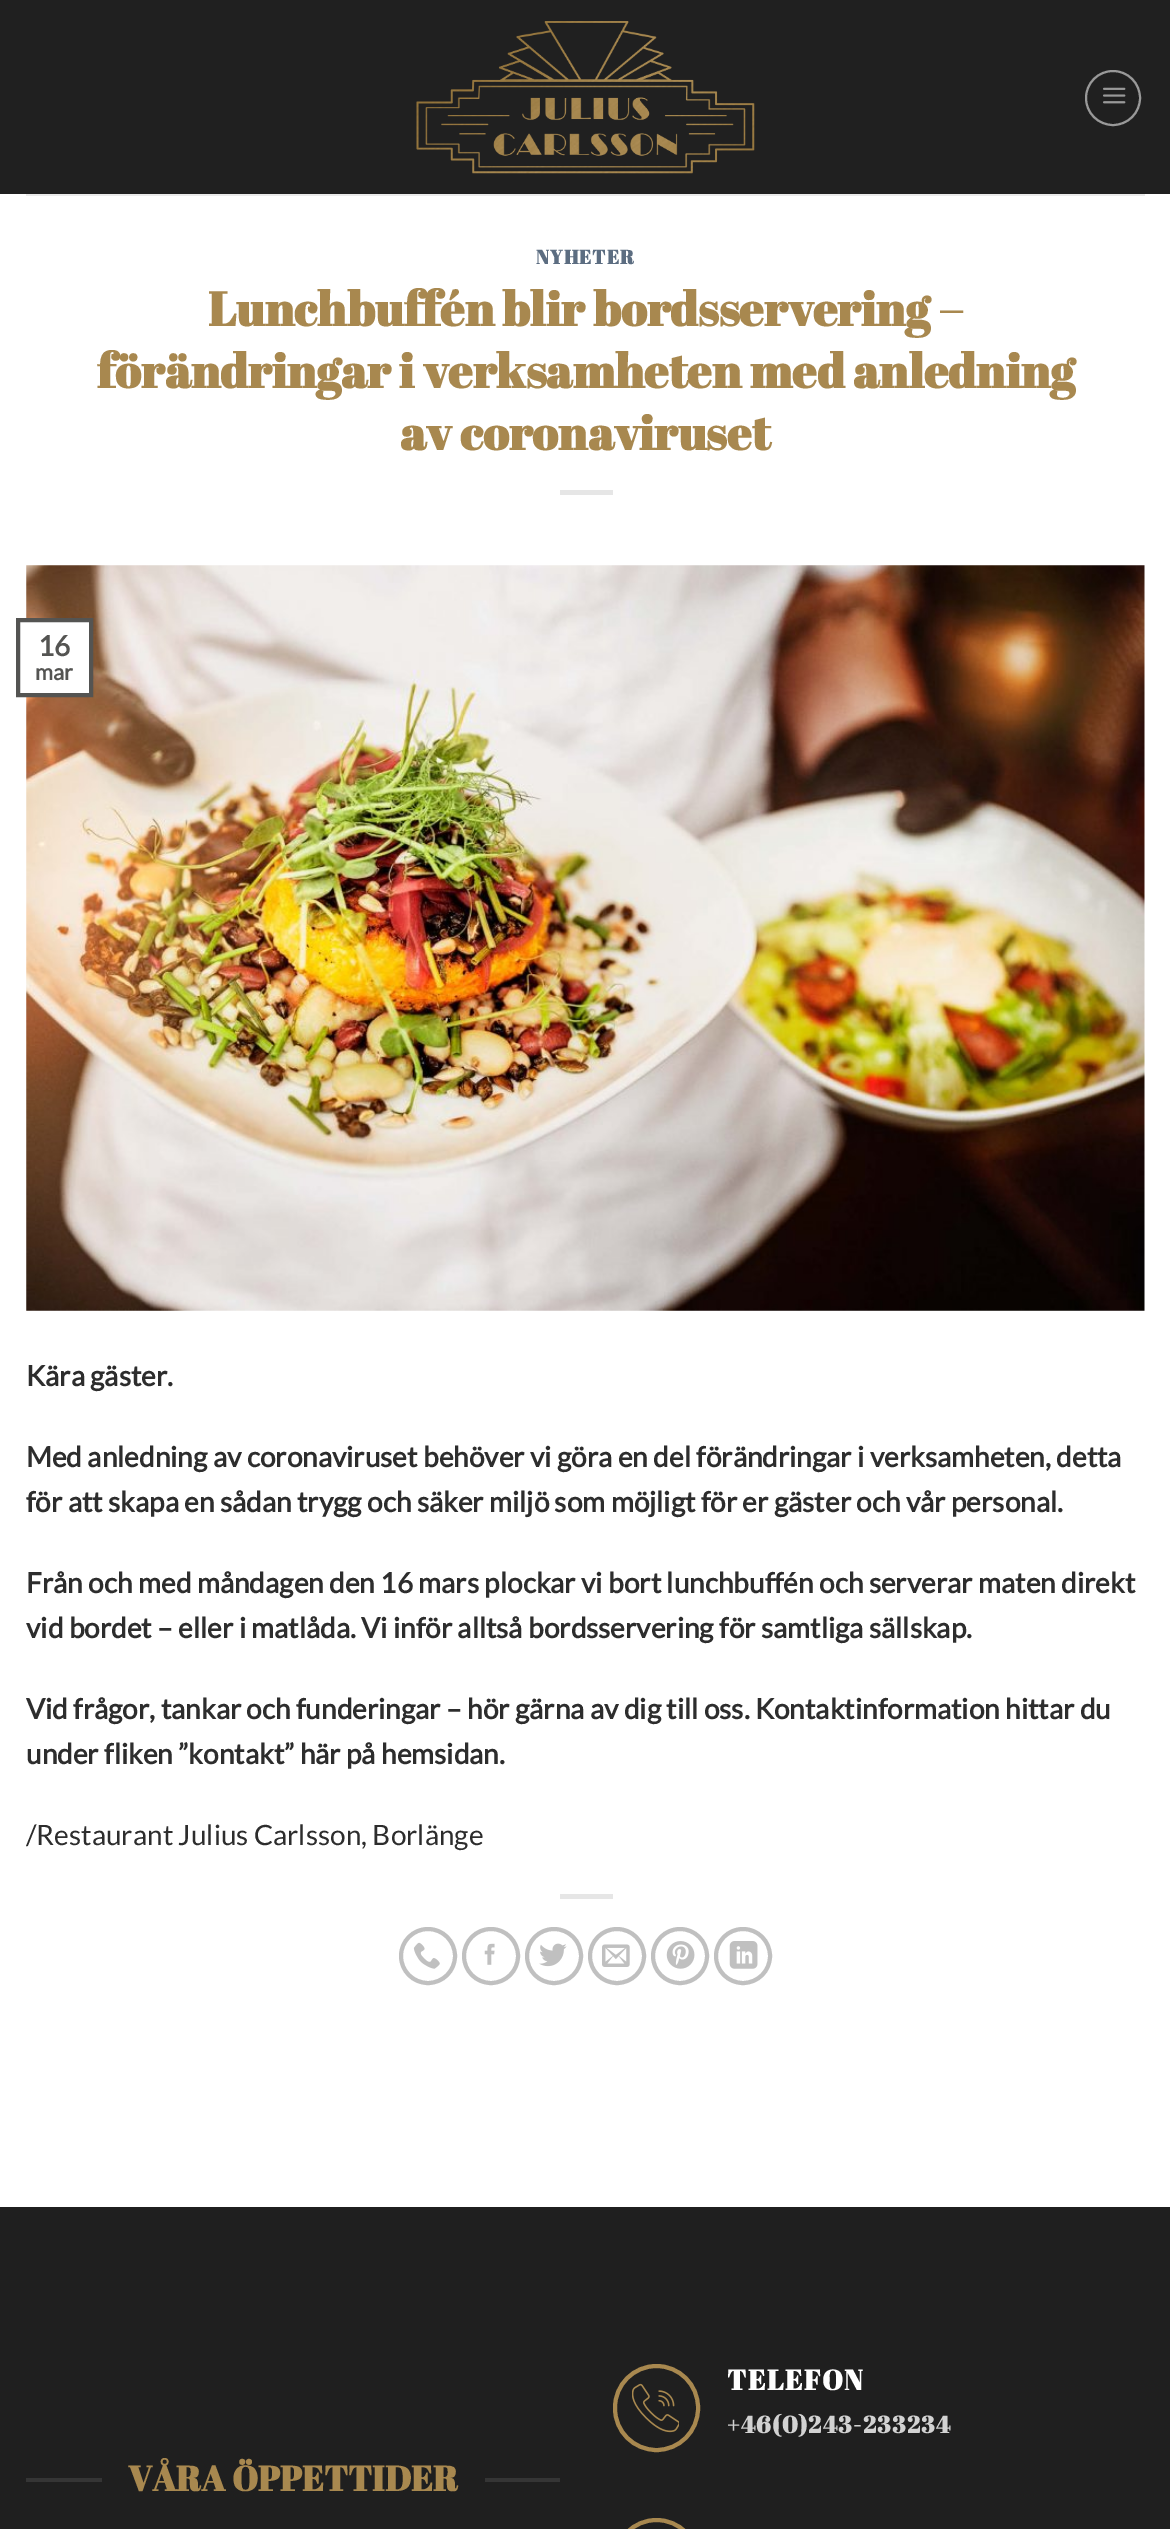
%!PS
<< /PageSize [1170 2529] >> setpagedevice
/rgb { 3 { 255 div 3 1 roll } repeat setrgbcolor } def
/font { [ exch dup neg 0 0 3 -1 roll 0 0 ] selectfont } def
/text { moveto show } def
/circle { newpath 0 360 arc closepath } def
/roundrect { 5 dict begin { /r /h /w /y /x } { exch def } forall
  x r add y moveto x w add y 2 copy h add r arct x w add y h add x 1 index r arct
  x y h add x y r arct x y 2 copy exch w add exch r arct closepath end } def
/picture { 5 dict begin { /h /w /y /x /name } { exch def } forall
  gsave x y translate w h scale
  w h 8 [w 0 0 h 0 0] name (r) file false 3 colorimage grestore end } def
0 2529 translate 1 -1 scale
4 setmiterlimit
255 255 255 rgb
0 0 1170 2529 rectfill
32 32 32 rgb
0 0 1170 194 rectfill
(img_01.rgb) 416 21 339 153 picture
153 153 153 rgb
2 setlinewidth
1113 98 27 circle stroke
(img_02.rgb) 1103 87 23 17 picture
234 234 234 rgb
26 194 1119 2 rectfill
230 230 230 rgb
560 490 53 5 rectfill
(img_03.rgb) 26 565 1119 746 picture
255 255 255 rgb
26 622 63 71 rectfill
84 84 82 rgb
4 setlinewidth
18 620 73 75 rectstroke
230 230 230 rgb
560 1894 53 5 rectfill
192 192 192 rgb
428 1956 27 circle stroke
(img_04.rgb) 413 1942 27 27 picture
491 1956 27 circle stroke
(img_05.rgb) 484 1943 11 22 picture
554 1956 27 circle stroke
(img_06.rgb) 539 1943 28 24 picture
617 1956 27 circle stroke
(img_07.rgb) 602 1944 28 23 picture
680 1956 27 circle stroke
(img_08.rgb) 666 1941 29 28 picture
743 1956 27 circle stroke
(img_09.rgb) 729 1941 29 28 picture
31 31 31 rgb
0 2207 1170 322 rectfill
168 136 79 rgb
615 2366 83 84 41.5 roundrect stroke
(img_10.rgb) 632 2383 47 50 picture
615 2520 83 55 41.5 roundrect stroke
53 53 53 rgb
26 2478 76 4 rectfill
485 2478 75 4 rectfill
/AbrilFatface-Bold 19.5 font
92 109 129 rgb
536 264 moveto 1 0 (NYHETER) ashow
/AbrilFatface-Bold 47.6 font
168 136 79 rgb
(Lunchbuffén blir bordsservering –) 208 326 text
(förändringar i verksamheten med anledning) 97 388 text
(av coronaviruset) 400 450 text
/Lato-Bold 28 font
84 84 82 rgb
(16) 38 656 text
/Lato-Bold 22 font
(mar) 35 680 text
/Lato-Bold 28 font
45 45 45 rgb
(Kära gäster.) 26 1386 text
(Med anledning av coronaviruset behöver vi göra en del förändringar i verksamheten, detta) 26 1467 text
(för att skapa en sådan trygg och säker miljö som möjligt för er gäster och vår personal.) 26 1512 text
(Från och med måndagen den 16 mars plockar vi bort lunchbuffén och serverar maten direkt) 26 1593 text
(vid bordet – eller i matlåda. Vi inför alltså bordsservering för samtliga sällskap.) 26 1638 text
(Vid frågor, tankar och funderingar – hör gärna av dig till oss. Kontaktinformation hittar du) 26 1719 text
(under fliken ”kontakt” här på hemsidan.) 26 1764 text
/Lato-Regular 28 font
(/Restaurant Julius Carlsson, Borlänge) 26 1845 text
/AbrilFatface-Bold 28 font
255 255 255 rgb
727 2390 moveto 1.5 0 (TELEFON) ashow
/AbrilFatface-Bold 23.75 font
210 210 210 rgb
727 2433 moveto 1.25 0 (+46\(0\)243-233234) ashow
/AbrilFatface-Bold 35 font
168 136 79 rgb
(VÅRA ÖPPETTIDER) 128 2491 text
showpage
